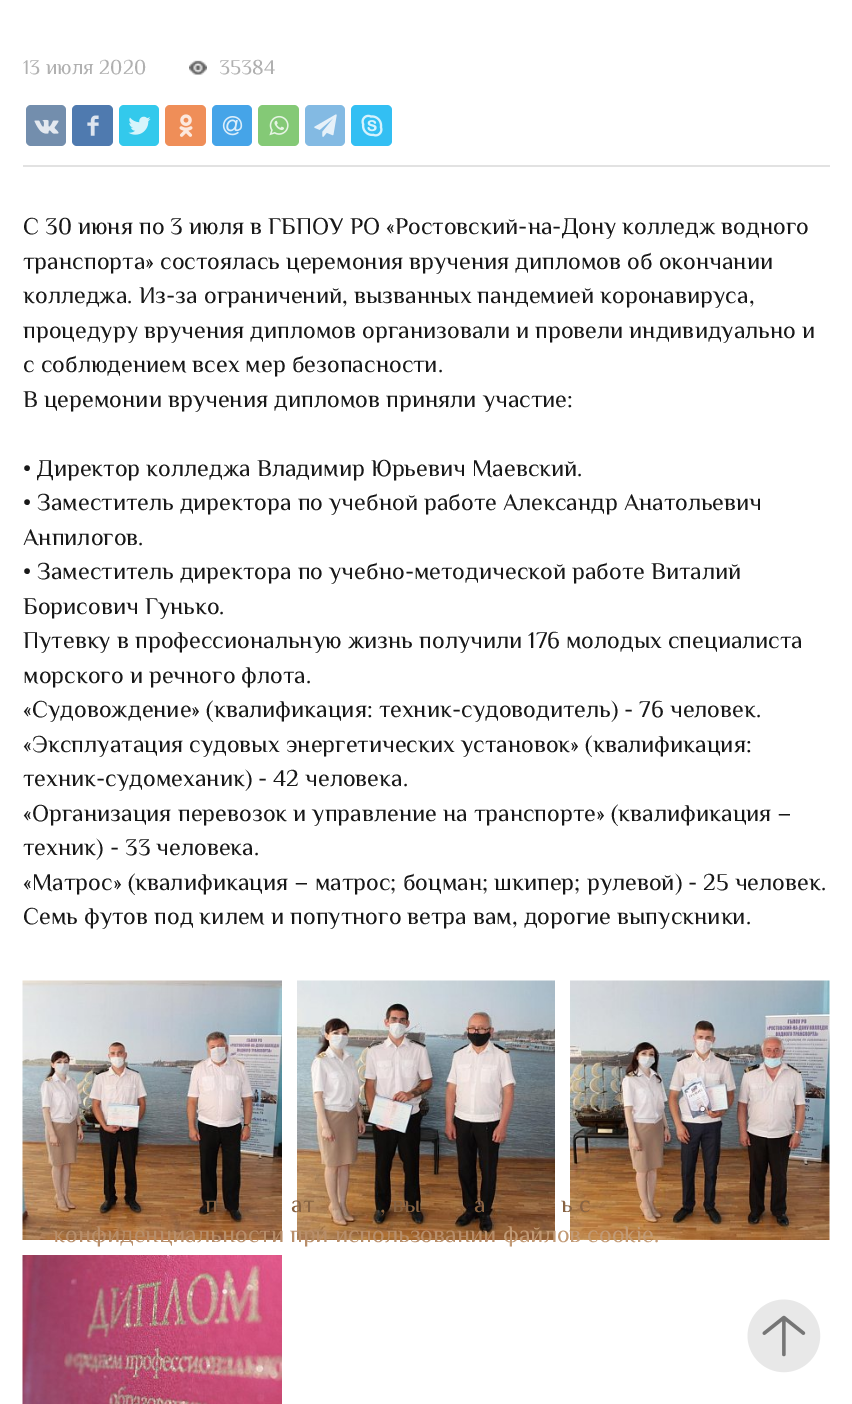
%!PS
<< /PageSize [852 1404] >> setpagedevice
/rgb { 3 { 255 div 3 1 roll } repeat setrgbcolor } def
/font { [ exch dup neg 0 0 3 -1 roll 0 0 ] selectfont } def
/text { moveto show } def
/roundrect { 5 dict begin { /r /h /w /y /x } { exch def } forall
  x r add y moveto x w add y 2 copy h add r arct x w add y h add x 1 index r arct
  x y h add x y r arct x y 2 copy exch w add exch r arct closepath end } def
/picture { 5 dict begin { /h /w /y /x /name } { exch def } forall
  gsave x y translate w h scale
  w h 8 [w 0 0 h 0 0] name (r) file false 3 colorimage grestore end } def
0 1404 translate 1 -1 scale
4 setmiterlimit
255 255 255 rgb
0 0 852 1404 rectfill
226 226 226 rgb
23 165 807 2 rectfill
(img_01.rgb) 189 60 18 15 picture
115 142 173 rgb
26 105 40 41 5 roundrect fill
(img_02.rgb) 34 119 25 15 picture
79 122 175 rgb
72 105 41 41 5 roundrect fill
(img_03.rgb) 87 115 12 21 picture
51 201 236 rgb
119 105 40 41 5 roundrect fill
(img_04.rgb) 128 116 23 19 picture
239 142 88 rgb
165 105 41 41 5 roundrect fill
(img_05.rgb) 179 114 14 23 picture
69 164 232 rgb
212 105 40 41 5 roundrect fill
(img_06.rgb) 222 116 21 20 picture
132 201 118 rgb
258 105 41 41 5 roundrect fill
(img_07.rgb) 269 115 20 21 picture
131 186 227 rgb
305 105 40 41 5 roundrect fill
(img_08.rgb) 314 114 23 23 picture
51 191 243 rgb
351 105 41 41 5 roundrect fill
(img_09.rgb) 361 114 22 23 picture
(img_10.rgb) 22 980 260 260 picture
(img_11.rgb) 297 980 258 260 picture
(img_12.rgb) 570 980 260 260 picture
(img_13.rgb) 22 1255 260 149 picture
(img_14.rgb) 747 1299 74 74 picture
/ElMessiri-Regular 21 font
176 176 176 rgb
(13 июля 2020) 23 74 text
(35384) 219 74 text
/ElMessiri-Regular 24 font
24 24 24 rgb
(С 30 июня по 3 июля в ГБПОУ РО «Ростовский-на-Дону колледж водного) 23 234 text
(транспорта» состоялась церемония вручения дипломов об окончании) 23 269 text
(колледжа. Из-за ограничений, вызванных пандемией коронавируса,) 23 303 text
(процедуру вручения дипломов организовали и провели индивидуально и) 23 338 text
(с соблюдением всех мер безопасности.) 23 372 text
(В церемонии вручения дипломов приняли участие:) 23 407 text
(• Директор колледжа Владимир Юрьевич Маевский.) 23 476 text
(• Заместитель директора по учебной работе Александр Анатольевич) 23 510 text
(Анпилогов.) 23 545 text
(• Заместитель директора по учебно-методической работе Виталий) 23 579 text
(Борисович Гунько.) 23 614 text
(Путевку в профессиональную жизнь получили 176 молодых специалиста) 23 648 text
(морского и речного флота.) 23 683 text
(«Судовождение» \(квалификация: техник-судоводитель\) - 76 человек.) 23 717 text
(«Эксплуатация судовых энергетических установок» \(квалификация:) 23 752 text
(техник-судомеханик\) - 42 человека.) 23 786 text
(«Организация перевозок и управление на транспорте» \(квалификация –) 23 821 text
(техник\) - 33 человека.) 23 855 text
(«Матрос» \(квалификация – матрос; боцман; шкипер; рулевой\) - 25 человек.) 23 890 text
(Семь футов под килем и попутного ветра вам, дорогие выпускники.) 23 924 text
136 99 67 rgb
(п) 205 1212 text
(ат) 291 1212 text
(, вы) 380 1212 text
(а) 474 1212 text
(ь с) 561 1212 text
184 142 106 rgb
(конфиденциальности при использовании) 53 1242 text
194 154 117 rgb
(файлов cookie.) 503 1242 text
showpage
